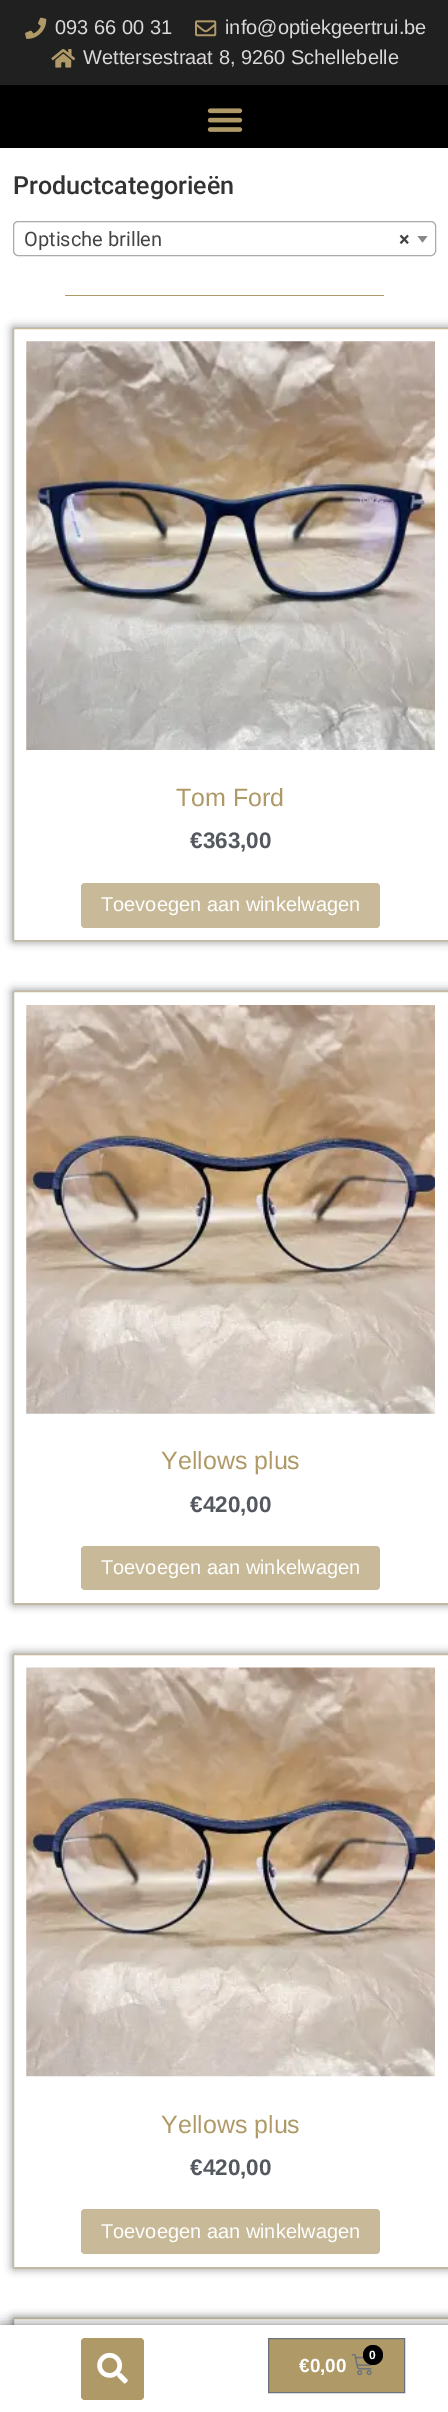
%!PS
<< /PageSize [448 2412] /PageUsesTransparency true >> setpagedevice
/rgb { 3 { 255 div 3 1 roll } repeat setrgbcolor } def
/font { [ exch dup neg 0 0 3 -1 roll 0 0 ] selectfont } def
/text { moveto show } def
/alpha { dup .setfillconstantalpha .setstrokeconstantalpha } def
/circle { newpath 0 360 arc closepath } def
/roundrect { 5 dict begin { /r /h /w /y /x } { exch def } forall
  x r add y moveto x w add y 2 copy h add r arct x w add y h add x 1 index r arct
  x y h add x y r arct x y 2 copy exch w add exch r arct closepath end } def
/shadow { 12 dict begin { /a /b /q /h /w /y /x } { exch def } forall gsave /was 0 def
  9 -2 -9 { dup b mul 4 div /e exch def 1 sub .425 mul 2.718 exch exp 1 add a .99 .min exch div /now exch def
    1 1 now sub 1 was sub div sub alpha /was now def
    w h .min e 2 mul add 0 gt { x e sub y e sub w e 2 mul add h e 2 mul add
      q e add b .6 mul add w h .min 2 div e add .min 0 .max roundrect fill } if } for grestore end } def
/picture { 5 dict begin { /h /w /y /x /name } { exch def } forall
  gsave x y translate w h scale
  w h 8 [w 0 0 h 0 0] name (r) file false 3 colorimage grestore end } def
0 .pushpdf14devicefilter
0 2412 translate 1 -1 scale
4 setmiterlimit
255 255 255 rgb
0 0 448 2412 rectfill
32 32 32 rgb
0 0 448 85 rectfill
(img_01.rgb) 25 17 22 22 picture
(img_02.rgb) 195 20 22 17 picture
(img_03.rgb) 51 49 25 19 picture
0 0 0 rgb
0 85 448 63 rectfill
(img_04.rgb) 207 108 36 24 picture
170 170 170 rgb
13.5 221.5 422 34 4.5 roundrect stroke
136 136 136 rgb
417.5 236 moveto 10 0 rlineto -5 6.5 rlineto closepath fill
174 153 103 rgb
65 295 319 1 rectfill
gsave
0 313 moveto 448 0 rlineto 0 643 rlineto -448 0 rlineto closepath 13 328 moveto 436 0 rlineto 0 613 rlineto -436 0 rlineto closepath eoclip newpath
0 0 0 rgb
13 328 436 613 0 4.5 0.5 shadow
grestore
200 186 152 rgb
13.5 328.5 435 612 rectstroke
(img_05.rgb) 26 341 409 409 picture
81 883 299 45 4 roundrect fill
gsave
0 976 moveto 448 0 rlineto 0 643 rlineto -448 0 rlineto closepath 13 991 moveto 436 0 rlineto 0 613 rlineto -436 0 rlineto closepath eoclip newpath
0 0 0 rgb
13 991 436 613 0 4.5 0.5 shadow
grestore
0.68 alpha
174 153 103 rgb
13.5 991.5 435 612 rectstroke
1 alpha
(img_06.rgb) 26 1005 409 409 picture
200 186 152 rgb
81 1546 299 44 4 roundrect fill
gsave
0 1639 moveto 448 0 rlineto 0 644 rlineto -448 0 rlineto closepath 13 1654 moveto 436 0 rlineto 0 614 rlineto -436 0 rlineto closepath eoclip newpath
0 0 0 rgb
13 1654 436 614 0 4.5 0.5 shadow
grestore
0.68 alpha
174 153 103 rgb
13.5 1654.5 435 613 rectstroke
1 alpha
(img_07.rgb) 26 1667 409 410 picture
200 186 152 rgb
81 2209 299 45 4 roundrect fill
gsave
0 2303 moveto 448 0 rlineto 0 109 rlineto -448 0 rlineto closepath 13 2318 moveto 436 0 rlineto 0 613 rlineto -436 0 rlineto closepath eoclip newpath
0 0 0 rgb
13 2318 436 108 0 4.5 0.5 shadow
grestore
13.5 2318.5 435 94 rectstroke
0 0 0 rgb
0 2325 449 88 0 6 0.5 shadow
255 255 255 rgb
0 2325 448 87 rectfill
174 153 103 rgb
81 2338 63 62 4 roundrect fill
(img_08.rgb) 97 2352 31 32 picture
268.5 2338.5 moveto 136 0 rlineto 0 54 rlineto -136 0 rlineto closepath gsave fill grestore
105 114 125 rgb
stroke
(img_09.rgb) 351 2354 22 22 picture
0 0 0 rgb
373 2355 10 circle fill
/LiberationSans-Regular 20 font
219 216 216 rgb
(093 66 00 31) 55 34 text
(info@optiekgeertrui.be) 225 34 text
(Wettersestraat 8, 9260 Schellebelle) 83 64 text
/Roboto-Medium 25 font
51 51 51 rgb
(Productcategorieën) 13 194 text
/Roboto-Regular 20 font
68 68 68 rgb
(Optische brillen) 24 246 text
/Roboto-Bold 20 font
(×) 399 246 text
/LiberationSans-Regular 25 font
174 153 103 rgb
(Tom Ford) 176 806 text
/LiberationSans-Bold 22.5 font
84 89 95 rgb
(€363,00) 190 848 text
/LiberationSans-Regular 20 font
255 255 255 rgb
(Toevoegen aan winkelwagen) 101 911 text
/LiberationSans-Regular 25 font
174 153 103 rgb
(Yellows plus) 161 1469 text
/LiberationSans-Bold 22.5 font
84 89 95 rgb
(€420,00) 190 1512 text
/LiberationSans-Regular 20 font
255 255 255 rgb
(Toevoegen aan winkelwagen) 101 1574 text
/LiberationSans-Regular 25 font
174 153 103 rgb
(Yellows plus) 161 2133 text
/LiberationSans-Bold 22.5 font
84 89 95 rgb
(€420,00) 190 2175 text
/LiberationSans-Regular 20 font
255 255 255 rgb
(Toevoegen aan winkelwagen) 101 2238 text
/LiberationSans-Bold 12 font
(0) 369 2359 text
/LiberationSans-Bold 19 font
(€0,00) 299 2372 text
.poppdf14devicefilter showpage
